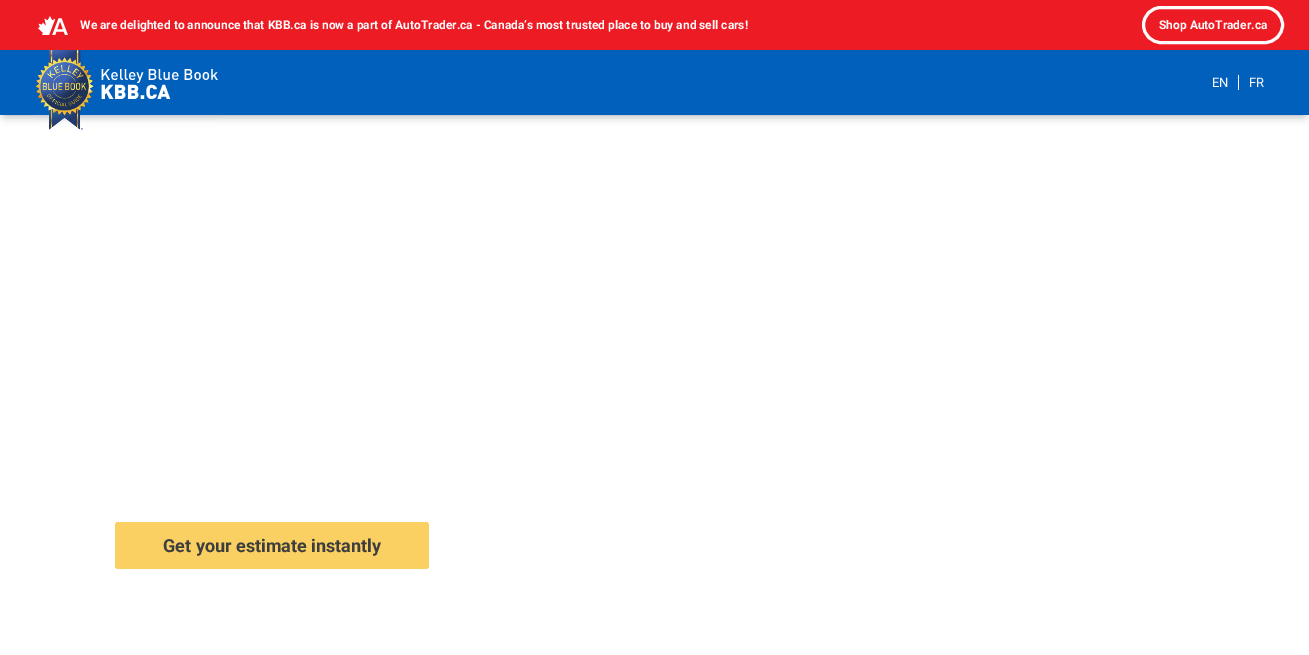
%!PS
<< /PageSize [1309 655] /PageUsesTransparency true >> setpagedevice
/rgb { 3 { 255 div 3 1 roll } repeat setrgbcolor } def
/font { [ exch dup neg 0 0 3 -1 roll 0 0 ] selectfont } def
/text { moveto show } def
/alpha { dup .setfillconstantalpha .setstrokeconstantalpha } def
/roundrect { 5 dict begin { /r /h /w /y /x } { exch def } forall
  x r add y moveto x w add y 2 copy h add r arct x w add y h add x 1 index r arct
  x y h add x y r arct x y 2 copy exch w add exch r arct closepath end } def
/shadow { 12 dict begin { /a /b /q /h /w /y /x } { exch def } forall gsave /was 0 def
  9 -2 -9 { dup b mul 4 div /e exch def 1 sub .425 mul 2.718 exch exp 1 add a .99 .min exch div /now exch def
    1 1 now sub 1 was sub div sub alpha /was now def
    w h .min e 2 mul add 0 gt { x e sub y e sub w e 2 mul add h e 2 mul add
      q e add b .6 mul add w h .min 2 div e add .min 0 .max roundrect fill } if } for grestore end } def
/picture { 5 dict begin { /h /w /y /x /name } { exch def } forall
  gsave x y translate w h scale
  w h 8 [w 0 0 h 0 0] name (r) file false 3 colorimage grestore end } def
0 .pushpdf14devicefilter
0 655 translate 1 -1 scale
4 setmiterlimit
255 255 255 rgb
0 0 1309 655 rectfill
237 28 36 rgb
0 0 1309 50 rectfill
(img_01.rgb) 38 16 30 19 picture
255 250 251 rgb
3 setlinewidth
1143.5 7.5 139 35 17.5 roundrect stroke
36 53 67 rgb
5 60 1299 55 0 5 0.5 shadow
0 96 188 rgb
0 50 1309 65 rectfill
(img_02.rgb) 35 50 183 80 picture
255 255 255 rgb
1238 75 1 15 rectfill
250 208 98 rgb
115 522 314 47 3 roundrect fill
/Roboto-Bold 12 font
255 250 251 rgb
(We are delighted to announce that KBB.ca is now a part of AutoTrader.ca - Canada’s most trusted place to buy and sell cars!) 80 29 text
(Shop AutoTrader.ca) 1159 29 text
/Roboto-Regular 13 font
(EN) 1212 87 text
(FR) 1249 87 text
/Roboto-Bold 18 font
62 62 62 rgb
(Get your estimate instantly) 163 552 text
.poppdf14devicefilter showpage
